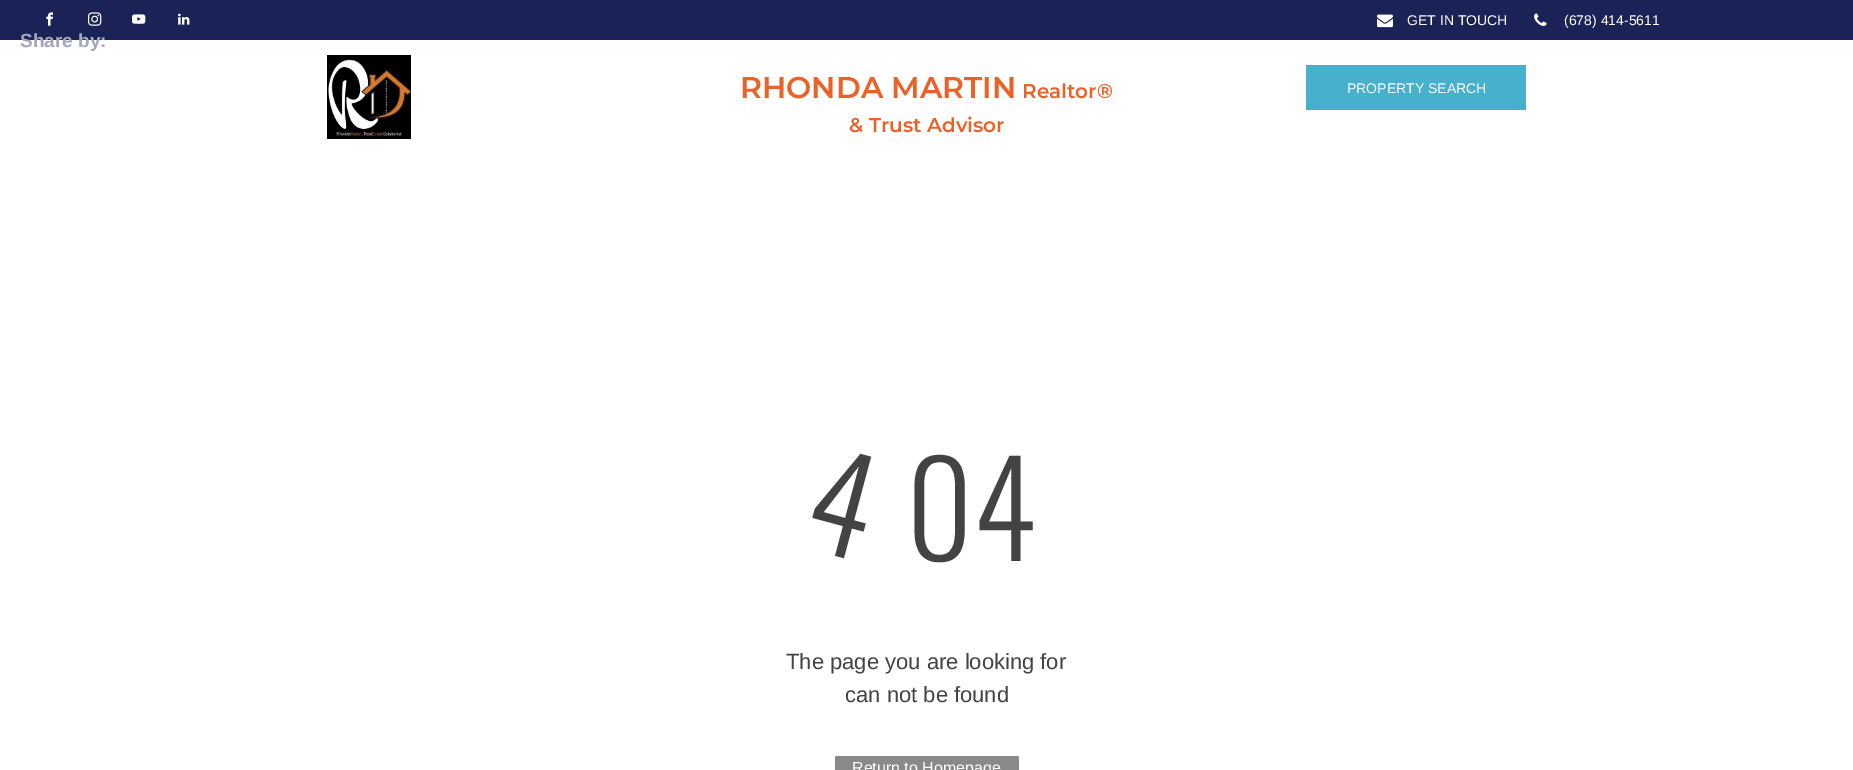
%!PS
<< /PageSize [1853 770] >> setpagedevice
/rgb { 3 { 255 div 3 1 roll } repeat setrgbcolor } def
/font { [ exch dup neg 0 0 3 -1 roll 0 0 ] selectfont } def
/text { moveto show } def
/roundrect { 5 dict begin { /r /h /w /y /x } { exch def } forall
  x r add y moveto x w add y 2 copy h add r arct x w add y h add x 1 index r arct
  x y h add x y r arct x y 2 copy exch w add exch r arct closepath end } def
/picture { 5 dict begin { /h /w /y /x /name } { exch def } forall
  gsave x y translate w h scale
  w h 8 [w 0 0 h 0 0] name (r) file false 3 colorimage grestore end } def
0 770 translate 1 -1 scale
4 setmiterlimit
255 255 255 rgb
0 0 1853 770 rectfill
27 35 86 rgb
0 0 1853 40 rectfill
(img_01.rgb) 46 12 7 14 picture
(img_02.rgb) 88 12 14 14 picture
(img_03.rgb) 132 14 14 10 picture
(img_04.rgb) 178 13 12 12 picture
(img_05.rgb) 1377 14 16 14 picture
(img_06.rgb) 1534 13 13 13 picture
(img_07.rgb) 327 55 84 84 picture
70 176 205 rgb
1306 65 220 45 rectfill
137 137 137 rgb
835 756 184 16 2 roundrect fill
/LiberationSans-Bold 19 font
164 167 188 rgb
(Share by:) 20 47 text
/LiberationSans-Regular 14 font
255 255 255 rgb
(GET IN TOUCH) 1407 25 text
(\(678\) 414-5611) 1564 25 text
/Montserrat-SemiBold 30 font
235 97 38 rgb
(RHONDA MARTIN) 740 98 text
/Montserrat-SemiBold 20 font
(Realtor®) 1022 98 text
(& Trust Advisor) 849 132 text
/LiberationSans-Regular 14 font
255 255 255 rgb
(PROPERTY SEARCH) 1347 93 text
/Oswald-Light 130 font
67 67 67 rgb
gsave 798 546 translate 15 rotate 0 0 moveto (4) show grestore
(04) 906 561 text
/LiberationSans-Regular 22 font
(The page you are looking for) 786 669 text
(can not be found) 845 702 text
/LiberationSans-Regular 16 font
255 255 255 rgb
(Return to Homepage) 852 773 text
showpage
